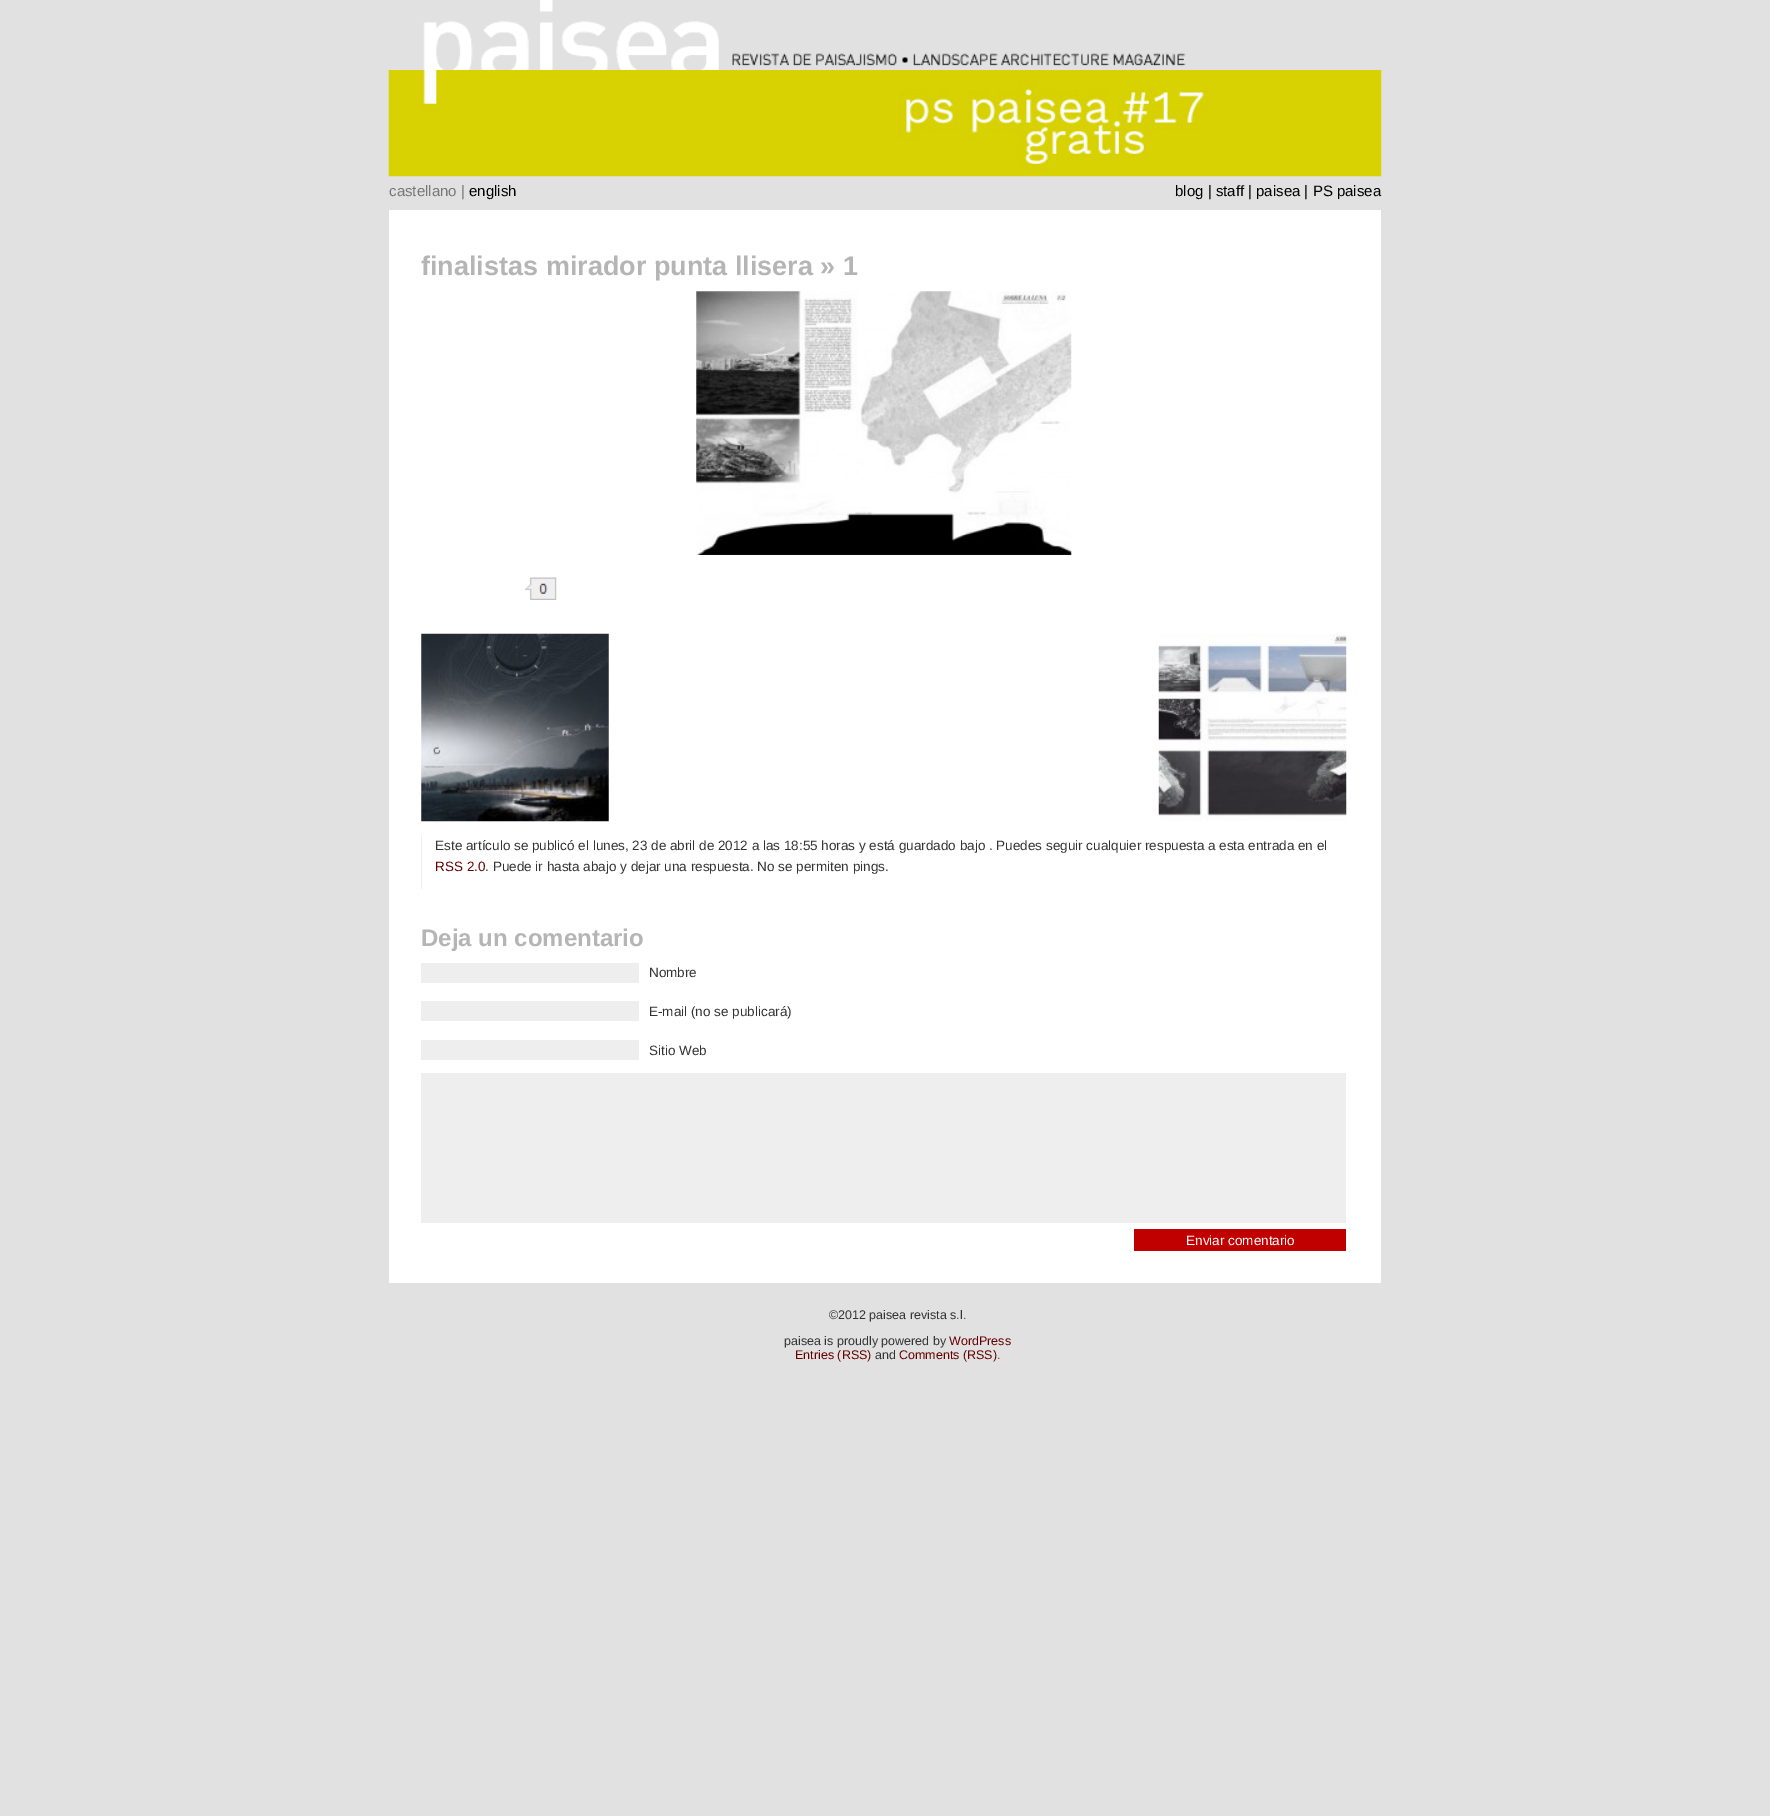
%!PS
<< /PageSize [1770 1816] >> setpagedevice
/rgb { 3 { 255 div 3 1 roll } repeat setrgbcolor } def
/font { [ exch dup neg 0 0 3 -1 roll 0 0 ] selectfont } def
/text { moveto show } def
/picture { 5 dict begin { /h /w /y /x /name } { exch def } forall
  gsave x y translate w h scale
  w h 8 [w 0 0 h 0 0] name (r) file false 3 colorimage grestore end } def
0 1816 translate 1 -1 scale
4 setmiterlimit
225 225 225 rgb
0 0 1770 1816 rectfill
255 255 255 rgb
389 210 992 1073 rectfill
(img_01.rgb) 389 0 992 70 picture
(img_02.rgb) 388 70 994 107 picture
(img_03.rgb) 696 291 376 264 picture
(img_04.rgb) 525 577 32 23 picture
(img_05.rgb) 421 633 188 189 picture
(img_06.rgb) 1158 634 189 187 picture
238 238 238 rgb
421 835 1 54 rectfill
421 963 218 20 rectfill
421 1001 218 20 rectfill
421 1040 218 20 rectfill
421 1073 925 150 rectfill
192 0 0 rgb
1134 1229 212 22 rectfill
/LiberationSans-Regular 15 font
119 119 119 rgb
(castellano |) 389 196 text
0 0 0 rgb
(english) 469 196 text
(blog | staff | paisea | PS paisea) 1175 196 text
/LiberationSans-Bold 27 font
181 181 181 rgb
(finalistas mirador punta llisera » 1) 421 275 text
/LiberationSans-Regular 13.5 font
51 51 51 rgb
(Este artículo se publicó el lunes, 23 de abril de 2012 a las 18:55 horas y está guardado bajo . Puedes seguir cualquier respuesta a esta entrada en el) 435 850 text
102 0 0 rgb
(RSS 2.0) 435 871 text
51 51 51 rgb
(. Puede ir hasta abajo y dejar una respuesta. No se permiten pings.) 485 871 text
/LiberationSans-Bold 24 font
181 181 181 rgb
(Deja un comentario) 421 946 text
/LiberationSans-Regular 13.5 font
51 51 51 rgb
(Nombre) 649 977 text
(E-mail \(no se publicará\)) 649 1016 text
(Sitio Web) 649 1055 text
255 255 255 rgb
(Enviar comentario) 1186 1245 text
/LiberationSans-Regular 12.5 font
51 51 51 rgb
(©2012 paisea revista s.l.) 829 1319 text
(paisea is proudly powered by) 784 1345 text
102 0 0 rgb
(WordPress) 949 1345 text
(Entries \(RSS\)) 795 1359 text
51 51 51 rgb
(and) 875 1359 text
102 0 0 rgb
(Comments \(RSS\)) 899 1359 text
51 51 51 rgb
(.) 997 1359 text
showpage
